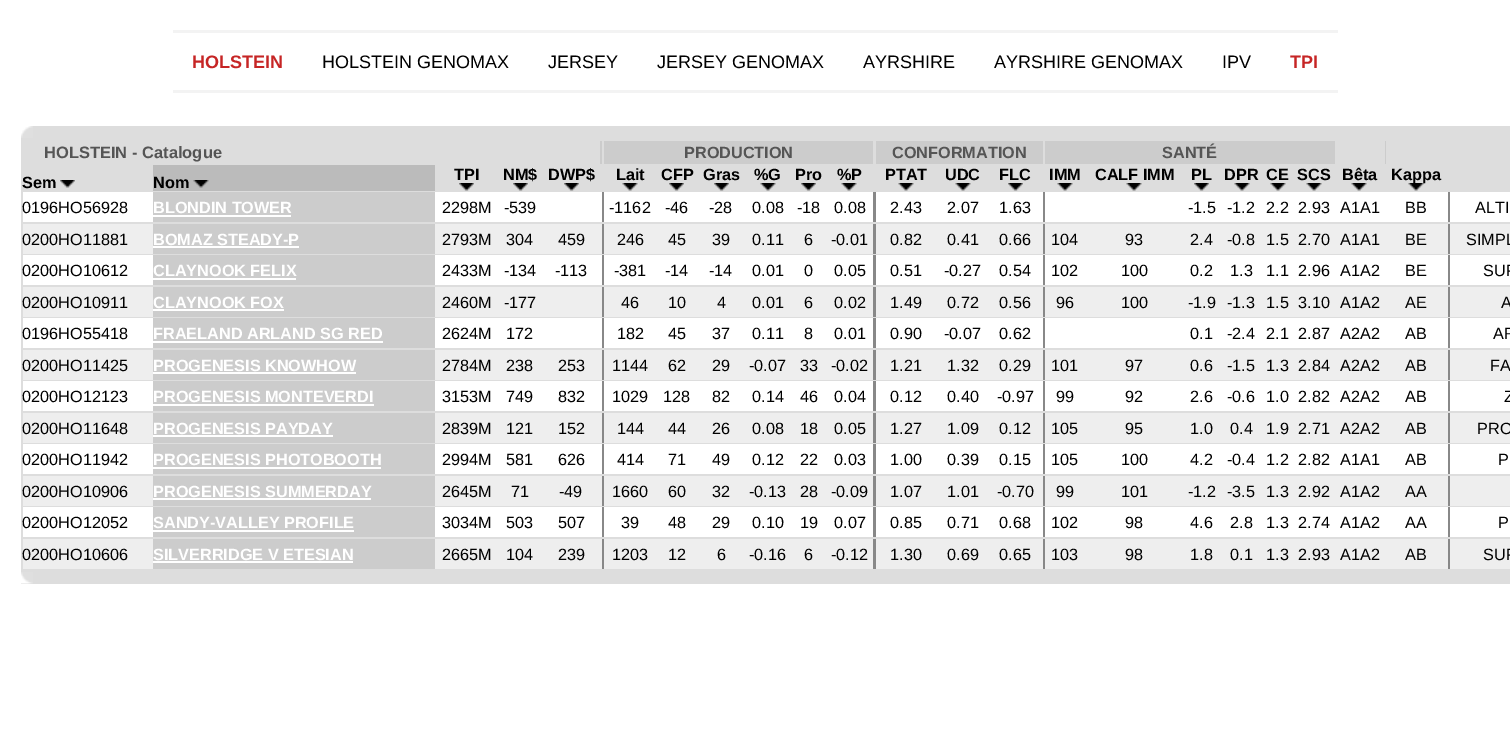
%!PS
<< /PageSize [1510 745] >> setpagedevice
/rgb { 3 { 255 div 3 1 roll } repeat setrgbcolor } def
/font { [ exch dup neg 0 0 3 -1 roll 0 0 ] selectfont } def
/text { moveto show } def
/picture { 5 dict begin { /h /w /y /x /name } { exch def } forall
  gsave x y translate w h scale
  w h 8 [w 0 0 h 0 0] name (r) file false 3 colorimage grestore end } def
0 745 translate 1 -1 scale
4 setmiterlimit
255 255 255 rgb
0 0 1510 745 rectfill
243 243 243 rgb
173 30 1165 3 rectfill
173 90 1165 3 rectfill
221 221 221 rgb
21 126 1489 458 rectfill
(img_01.rgb) 21 126 12 12 picture
204 204 204 rgb
600 141 786 23 rectfill
221 221 221 rgb
602 141 2 23 rectfill
873 141 3 23 rectfill
1043 141 2 23 rectfill
1335 141 50 23 rectfill
(img_02.rgb) 60 180 15 8 picture
187 187 187 rgb
153 165 282 26 rectfill
(img_03.rgb) 193 180 16 8 picture
(img_04.rgb) 459 183 15 8 picture
(img_05.rgb) 513 183 15 8 picture
(img_04.rgb) 564 183 15 8 picture
(img_06.rgb) 622 183 16 8 picture
(img_02.rgb) 669 183 15 8 picture
(img_04.rgb) 714 183 15 8 picture
(img_07.rgb) 760 183 16 8 picture
(img_02.rgb) 801 183 15 8 picture
(img_07.rgb) 841 183 16 8 picture
(img_07.rgb) 898 183 16 8 picture
(img_07.rgb) 955 183 16 8 picture
(img_02.rgb) 1008 183 15 8 picture
(img_06.rgb) 1057 183 16 8 picture
(img_06.rgb) 1126 183 16 8 picture
(img_04.rgb) 1194 183 15 8 picture
(img_07.rgb) 1234 183 16 8 picture
(img_07.rgb) 1270 183 16 8 picture
(img_06.rgb) 1306 183 16 8 picture
(img_06.rgb) 1351 183 16 8 picture
255 255 255 rgb
23 192 1487 30 rectfill
204 204 204 rgb
153 192 282 30 rectfill
255 255 255 rgb
153 215 138 2 rectfill
136 136 136 rgb
602 192 2 30 rectfill
873 192 3 30 rectfill
1043 192 2 30 rectfill
1448 192 2 30 rectfill
238 238 238 rgb
23 224 1487 30 rectfill
204 204 204 rgb
153 224 282 30 rectfill
255 255 255 rgb
153 246 146 2 rectfill
136 136 136 rgb
602 224 2 30 rectfill
873 224 3 30 rectfill
1043 224 2 30 rectfill
1448 224 2 30 rectfill
255 255 255 rgb
23 255 1487 30 rectfill
204 204 204 rgb
153 255 282 30 rectfill
255 255 255 rgb
153 278 143 2 rectfill
136 136 136 rgb
602 255 2 30 rectfill
873 255 3 30 rectfill
1043 255 2 30 rectfill
1448 255 2 30 rectfill
238 238 238 rgb
23 287 1487 30 rectfill
204 204 204 rgb
153 287 282 30 rectfill
255 255 255 rgb
153 309 131 2 rectfill
136 136 136 rgb
602 287 2 30 rectfill
873 287 3 30 rectfill
1043 287 2 30 rectfill
1448 287 2 30 rectfill
255 255 255 rgb
23 318 1487 30 rectfill
204 204 204 rgb
153 318 282 30 rectfill
255 255 255 rgb
153 341 230 2 rectfill
136 136 136 rgb
602 318 2 30 rectfill
873 318 3 30 rectfill
1043 318 2 30 rectfill
1448 318 2 30 rectfill
238 238 238 rgb
23 350 1487 30 rectfill
204 204 204 rgb
153 350 282 30 rectfill
255 255 255 rgb
153 372 203 2 rectfill
136 136 136 rgb
602 350 2 30 rectfill
873 350 3 30 rectfill
1043 350 2 30 rectfill
1448 350 2 30 rectfill
255 255 255 rgb
23 381 1487 30 rectfill
204 204 204 rgb
153 381 282 30 rectfill
255 255 255 rgb
153 404 221 2 rectfill
136 136 136 rgb
602 381 2 30 rectfill
873 381 3 30 rectfill
1043 381 2 30 rectfill
1448 381 2 30 rectfill
238 238 238 rgb
23 413 1487 30 rectfill
204 204 204 rgb
153 413 282 30 rectfill
255 255 255 rgb
153 435 180 2 rectfill
136 136 136 rgb
602 413 2 30 rectfill
873 413 3 30 rectfill
1043 413 2 30 rectfill
1448 413 2 30 rectfill
255 255 255 rgb
23 444 1487 30 rectfill
204 204 204 rgb
153 444 282 30 rectfill
255 255 255 rgb
153 467 228 2 rectfill
136 136 136 rgb
602 444 2 30 rectfill
873 444 3 30 rectfill
1043 444 2 30 rectfill
1448 444 2 30 rectfill
238 238 238 rgb
23 476 1487 30 rectfill
204 204 204 rgb
153 476 282 30 rectfill
255 255 255 rgb
153 498 218 2 rectfill
136 136 136 rgb
602 476 2 30 rectfill
873 476 3 30 rectfill
1043 476 2 30 rectfill
1448 476 2 30 rectfill
255 255 255 rgb
23 507 1487 30 rectfill
204 204 204 rgb
153 507 282 30 rectfill
255 255 255 rgb
153 530 201 2 rectfill
136 136 136 rgb
602 507 2 30 rectfill
873 507 3 30 rectfill
1043 507 2 30 rectfill
1448 507 2 30 rectfill
238 238 238 rgb
23 539 1487 30 rectfill
204 204 204 rgb
153 539 282 30 rectfill
255 255 255 rgb
153 561 200 2 rectfill
136 136 136 rgb
602 539 2 30 rectfill
873 539 3 30 rectfill
1043 539 2 30 rectfill
1448 539 2 30 rectfill
(img_09.rgb) 21 572 12 12 picture
/LiberationSans-Bold 18 font
198 37 37 rgb
(HOLSTEIN) 192 68 text
/LiberationSans-Regular 18 font
0 0 0 rgb
(HOLSTEIN GENOMAX) 322 68 text
(JERSEY) 548 68 text
(JERSEY GENOMAX) 657 68 text
(AYRSHIRE) 863 68 text
(AYRSHIRE GENOMAX) 994 68 text
(IPV) 1222 68 text
/LiberationSans-Bold 18 font
198 37 37 rgb
(TPI) 1290 68 text
/LiberationSans-Bold 16.5 font
85 85 85 rgb
(HOLSTEIN - Catalogue) 44 158 text
/LiberationSans-Bold 16.25 font
(PRODUCTION) 684 158 text
(CONFORMATION) 892 158 text
(SANTÉ) 1162 158 text
0 0 0 rgb
(Sem) 22 188 text
(Nom) 153 188 text
(TPI) 454 180 text
(NM$) 503 180 text
(DWP$) 548 180 text
(Lait) 616 180 text
(CFP) 661 180 text
(Gras) 703 180 text
(%G) 754 180 text
(Pro) 795 180 text
(%P) 837 180 text
(PTAT) 885 180 text
(UDC) 945 180 text
(FLC) 999 180 text
(IMM) 1049 180 text
(CALF IMM) 1095 180 text
(PL) 1191 180 text
(DPR) 1224 180 text
(CE) 1266 180 text
(SCS) 1297 180 text
(Bêta) 1342 180 text
(Kappa) 1391 180 text
(img_08.rgb) 1408 183 16 8 picture
/LiberationSans-Regular 16.25 font
(0196HO56928) 22 213 text
/LiberationSans-Bold 16.25 font
255 255 255 rgb
(BLONDIN TOWER) 153 213 text
/LiberationSans-Regular 16.25 font
0 0 0 rgb
(2298M) 442 213 text
(-539) 504 213 text
(-1162) 609 213 text
(-46) 665 213 text
(-28) 709 213 text
(0.08) 752 213 text
(-18) 797 213 text
(0.08) 834 213 text
(2.43) 890 213 text
(2.07) 947 213 text
(1.63) 999 213 text
(-1.5) 1188 213 text
(-1.2) 1227 213 text
(2.2) 1266 213 text
(2.93) 1298 213 text
(A1A1) 1340 213 text
(BB) 1405 213 text
(ALTI) 1475 213 text
(0200HO11881) 22 245 text
/LiberationSans-Bold 16.25 font
255 255 255 rgb
(BOMAZ STEADY-P) 153 245 text
/LiberationSans-Regular 16.25 font
0 0 0 rgb
(2793M) 442 245 text
(304) 506 245 text
(459) 558 245 text
(246) 617 245 text
(45) 668 245 text
(39) 712 245 text
(0.11) 752 245 text
(6) 804 245 text
(-0.01) 831 245 text
(0.82) 890 245 text
(0.41) 947 245 text
(0.66) 999 245 text
(104) 1051 245 text
(93) 1125 245 text
(2.4) 1190 245 text
(-0.8) 1227 245 text
(1.5) 1266 245 text
(2.70) 1298 245 text
(A1A1) 1340 245 text
(BE) 1405 245 text
(SIMPL) 1466 245 text
(0200HO10612) 22 276 text
/LiberationSans-Bold 16.25 font
255 255 255 rgb
(CLAYNOOK FELIX) 153 276 text
/LiberationSans-Regular 16.25 font
0 0 0 rgb
(2433M) 442 276 text
(-134) 504 276 text
(-113) 555 276 text
(-381) 614 276 text
(-14) 665 276 text
(-14) 709 276 text
(0.01) 752 276 text
(0) 804 276 text
(0.05) 834 276 text
(0.51) 890 276 text
(-0.27) 944 276 text
(0.54) 999 276 text
(102) 1051 276 text
(100) 1121 276 text
(0.2) 1190 276 text
(1.3) 1230 276 text
(1.1) 1266 276 text
(2.96) 1298 276 text
(A1A2) 1340 276 text
(BE) 1405 276 text
(SUP) 1483 276 text
(0200HO10911) 22 308 text
/LiberationSans-Bold 16.25 font
255 255 255 rgb
(CLAYNOOK FOX) 153 308 text
/LiberationSans-Regular 16.25 font
0 0 0 rgb
(2460M) 442 308 text
(-177) 504 308 text
(46) 621 308 text
(10) 668 308 text
(4) 717 308 text
(0.01) 752 308 text
(6) 804 308 text
(0.02) 834 308 text
(1.49) 890 308 text
(0.72) 947 308 text
(0.56) 999 308 text
(96) 1056 308 text
(100) 1121 308 text
(-1.9) 1188 308 text
(-1.3) 1227 308 text
(1.5) 1266 308 text
(3.10) 1298 308 text
(A1A2) 1340 308 text
(AE) 1405 308 text
(A) 1501 308 text
(0196HO55418) 22 339 text
/LiberationSans-Bold 16.25 font
255 255 255 rgb
(FRAELAND ARLAND SG RED) 153 339 text
/LiberationSans-Regular 16.25 font
0 0 0 rgb
(2624M) 442 339 text
(172) 506 339 text
(182) 617 339 text
(45) 668 339 text
(37) 712 339 text
(0.11) 752 339 text
(8) 804 339 text
(0.01) 834 339 text
(0.90) 890 339 text
(-0.07) 944 339 text
(0.62) 999 339 text
(0.1) 1190 339 text
(-2.4) 1227 339 text
(2.1) 1266 339 text
(2.87) 1298 339 text
(A2A2) 1340 339 text
(AB) 1405 339 text
(AR) 1493 339 text
(0200HO11425) 22 371 text
/LiberationSans-Bold 16.25 font
255 255 255 rgb
(PROGENESIS KNOWHOW) 153 371 text
/LiberationSans-Regular 16.25 font
0 0 0 rgb
(2784M) 442 371 text
(238) 506 371 text
(253) 558 371 text
(1144) 612 371 text
(62) 668 371 text
(29) 712 371 text
(-0.07) 749 371 text
(33) 800 371 text
(-0.02) 831 371 text
(1.21) 890 371 text
(1.32) 947 371 text
(0.29) 999 371 text
(101) 1051 371 text
(97) 1125 371 text
(0.6) 1190 371 text
(-1.5) 1227 371 text
(1.3) 1266 371 text
(2.84) 1298 371 text
(A2A2) 1340 371 text
(AB) 1405 371 text
(FA) 1490 371 text
(0200HO12123) 22 402 text
/LiberationSans-Bold 16.25 font
255 255 255 rgb
(PROGENESIS MONTEVERDI) 153 402 text
/LiberationSans-Regular 16.25 font
0 0 0 rgb
(3153M) 442 402 text
(749) 506 402 text
(832) 558 402 text
(1029) 612 402 text
(128) 663 402 text
(82) 712 402 text
(0.14) 752 402 text
(46) 800 402 text
(0.04) 834 402 text
(0.12) 890 402 text
(0.40) 947 402 text
(-0.97) 997 402 text
(99) 1056 402 text
(92) 1125 402 text
(2.6) 1190 402 text
(-0.6) 1227 402 text
(1.0) 1266 402 text
(2.82) 1298 402 text
(A2A2) 1340 402 text
(AB) 1405 402 text
(Z) 1504 402 text
(0200HO11648) 22 434 text
/LiberationSans-Bold 16.25 font
255 255 255 rgb
(PROGENESIS PAYDAY) 153 434 text
/LiberationSans-Regular 16.25 font
0 0 0 rgb
(2839M) 442 434 text
(121) 506 434 text
(152) 558 434 text
(144) 617 434 text
(44) 668 434 text
(26) 712 434 text
(0.08) 752 434 text
(18) 800 434 text
(0.05) 834 434 text
(1.27) 890 434 text
(1.09) 947 434 text
(0.12) 999 434 text
(105) 1051 434 text
(95) 1125 434 text
(1.0) 1190 434 text
(0.4) 1230 434 text
(1.9) 1266 434 text
(2.71) 1298 434 text
(A2A2) 1340 434 text
(AB) 1405 434 text
(PRO) 1477 434 text
(0200HO11942) 22 465 text
/LiberationSans-Bold 16.25 font
255 255 255 rgb
(PROGENESIS PHOTOBOOTH) 153 465 text
/LiberationSans-Regular 16.25 font
0 0 0 rgb
(2994M) 442 465 text
(581) 506 465 text
(626) 558 465 text
(414) 617 465 text
(71) 668 465 text
(49) 712 465 text
(0.12) 752 465 text
(22) 800 465 text
(0.03) 834 465 text
(1.00) 890 465 text
(0.39) 947 465 text
(0.15) 999 465 text
(105) 1051 465 text
(100) 1121 465 text
(4.2) 1190 465 text
(-0.4) 1227 465 text
(1.2) 1266 465 text
(2.82) 1298 465 text
(A1A1) 1340 465 text
(AB) 1405 465 text
(P) 1498 465 text
(0200HO10906) 22 497 text
/LiberationSans-Bold 16.25 font
255 255 255 rgb
(PROGENESIS SUMMERDAY) 153 497 text
/LiberationSans-Regular 16.25 font
0 0 0 rgb
(2645M) 442 497 text
(71) 511 497 text
(-49) 559 497 text
(1660) 612 497 text
(60) 668 497 text
(32) 712 497 text
(-0.13) 749 497 text
(28) 800 497 text
(-0.09) 831 497 text
(1.07) 890 497 text
(1.01) 947 497 text
(-0.70) 997 497 text
(99) 1056 497 text
(101) 1121 497 text
(-1.2) 1188 497 text
(-3.5) 1227 497 text
(1.3) 1266 497 text
(2.92) 1298 497 text
(A1A2) 1340 497 text
(AA) 1405 497 text
(0200HO12052) 22 528 text
/LiberationSans-Bold 16.25 font
255 255 255 rgb
(SANDY-VALLEY PROFILE) 153 528 text
/LiberationSans-Regular 16.25 font
0 0 0 rgb
(3034M) 442 528 text
(503) 506 528 text
(507) 558 528 text
(39) 621 528 text
(48) 668 528 text
(29) 712 528 text
(0.10) 752 528 text
(19) 800 528 text
(0.07) 834 528 text
(0.85) 890 528 text
(0.71) 947 528 text
(0.68) 999 528 text
(102) 1051 528 text
(98) 1125 528 text
(4.6) 1190 528 text
(2.8) 1230 528 text
(1.3) 1266 528 text
(2.74) 1298 528 text
(A1A2) 1340 528 text
(AA) 1405 528 text
(P) 1498 528 text
(0200HO10606) 22 560 text
/LiberationSans-Bold 16.25 font
255 255 255 rgb
(SILVERRIDGE V ETESIAN) 153 560 text
/LiberationSans-Regular 16.25 font
0 0 0 rgb
(2665M) 442 560 text
(104) 506 560 text
(239) 558 560 text
(1203) 612 560 text
(12) 668 560 text
(6) 717 560 text
(-0.16) 749 560 text
(6) 804 560 text
(-0.12) 831 560 text
(1.30) 890 560 text
(0.69) 947 560 text
(0.65) 999 560 text
(103) 1051 560 text
(98) 1125 560 text
(1.8) 1190 560 text
(0.1) 1230 560 text
(1.3) 1266 560 text
(2.93) 1298 560 text
(A1A2) 1340 560 text
(AB) 1405 560 text
(SUP) 1483 560 text
showpage
